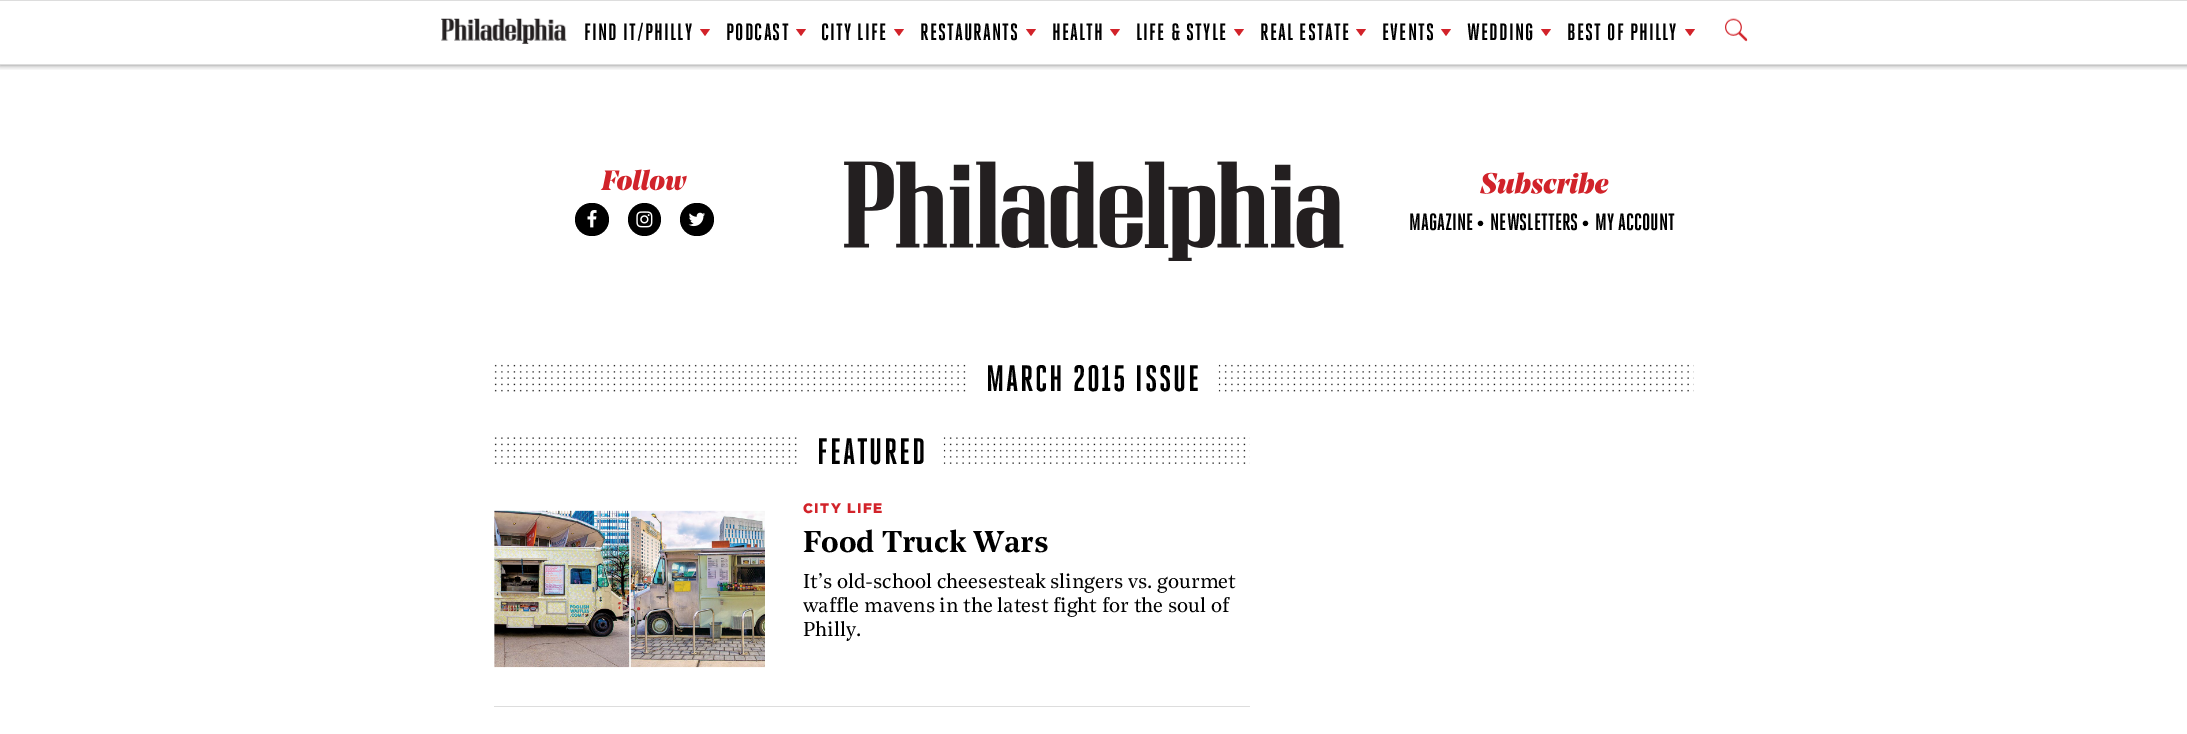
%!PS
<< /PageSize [2187 734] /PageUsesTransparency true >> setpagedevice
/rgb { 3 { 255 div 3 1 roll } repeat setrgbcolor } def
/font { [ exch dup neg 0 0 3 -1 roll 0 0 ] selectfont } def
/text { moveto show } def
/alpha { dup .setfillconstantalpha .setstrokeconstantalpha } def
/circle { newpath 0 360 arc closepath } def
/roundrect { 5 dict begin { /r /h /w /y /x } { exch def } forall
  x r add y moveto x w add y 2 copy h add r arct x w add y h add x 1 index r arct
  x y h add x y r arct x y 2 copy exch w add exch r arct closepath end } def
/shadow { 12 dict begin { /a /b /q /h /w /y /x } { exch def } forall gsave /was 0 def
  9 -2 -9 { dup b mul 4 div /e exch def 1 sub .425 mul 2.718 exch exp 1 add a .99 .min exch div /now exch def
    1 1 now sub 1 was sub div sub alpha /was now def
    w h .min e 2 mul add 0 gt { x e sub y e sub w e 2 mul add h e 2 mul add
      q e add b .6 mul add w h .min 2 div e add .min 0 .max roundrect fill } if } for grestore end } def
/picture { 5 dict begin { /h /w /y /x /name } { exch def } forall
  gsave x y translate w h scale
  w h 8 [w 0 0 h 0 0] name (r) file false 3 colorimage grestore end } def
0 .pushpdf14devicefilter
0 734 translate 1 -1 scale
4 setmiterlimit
255 255 255 rgb
0 0 2187 734 rectfill
gsave
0 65 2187 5 rectclip
0 0 0 rgb
0 0 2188 65 0 3 0.5 shadow
grestore
221 221 221 rgb
0 0 2187 1 rectfill
0 64 2187 1 rectfill
(img_01.rgb) 441 18 126 26 picture
210 35 42 rgb
700 29 moveto 10 0 rlineto -5 7 rlineto closepath fill
796 29 moveto 10 0 rlineto -5 7 rlineto closepath fill
894 29 moveto 10 0 rlineto -5 7 rlineto closepath fill
1026 29 moveto 10 0 rlineto -5 7 rlineto closepath fill
1110 29 moveto 10 0 rlineto -5 7 rlineto closepath fill
1234 29 moveto 10 0 rlineto -5 7 rlineto closepath fill
1356 29 moveto 10 0 rlineto -5 7 rlineto closepath fill
1441 29 moveto 10 0 rlineto -5 7 rlineto closepath fill
1541 29 moveto 10 0 rlineto -5 7 rlineto closepath fill
1685 29 moveto 10 0 rlineto -5 7 rlineto closepath fill
(img_02.rgb) 1725 18 23 24 picture
(img_03.rgb) 600 169 87 22 picture
0 0 0 rgb
575 203 34 33 16.5 roundrect fill
(img_04.rgb) 587 210 10 18 picture
644.5 219.5 16.5 circle fill
(img_05.rgb) 636 211 17 17 picture
680 203 34 33 16.5 roundrect fill
(img_06.rgb) 688 212 17 15 picture
(img_07.rgb) 844 161 500 100 picture
(img_08.rgb) 1480 172 129 22 picture
(img_09.rgb) 494 364 472 28 picture
(img_10.rgb) 1218 364 476 28 picture
(img_11.rgb) 494 437 303 27 picture
(img_12.rgb) 943 437 307 27 picture
221 221 221 rgb
494 706 756 1 rectfill
(img_13.rgb) 494 510 271 158 picture
/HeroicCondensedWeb-SemiBold 22.5 font
0 0 0 rgb
584 40 moveto 1.1 0 (FIND IT/PHILLY) ashow
726 40 moveto 1.1 0 (PODCAST) ashow
821 40 moveto 1.1 0 (CITY LIFE) ashow
920 40 moveto 1.1 0 (RESTAURANTS) ashow
1052 40 moveto 1.1 0 (HEALTH) ashow
1136 40 moveto 1.1 0 (LIFE & STYLE) ashow
1260 40 moveto 1.1 0 (REAL ESTATE) ashow
1382 40 moveto 1.1 0 (EVENTS) ashow
1467 40 moveto 1.1 0 (WEDDING) ashow
1567 40 moveto 1.1 0 (BEST OF PHILLY) ashow
(MAGAZINE) 1409 230 text
/LiberationSans-Regular 20 font
(•) 1477 230 text
/HeroicCondensedWeb-SemiBold 22.5 font
(NEWSLETTERS) 1490 230 text
/LiberationSans-Regular 20 font
(•) 1582 230 text
/HeroicCondensedWeb-SemiBold 22.5 font
(MY ACCOUNT) 1595 230 text
/HeroicCondensedWeb-SemiBold 35 font
986 391 moveto 1.75 0 (MARCH 2015 ISSUE) ashow
817 464 moveto 1.75 0 (FEATURED) ashow
/Gotham-Black 13.75 font
210 35 42 rgb
803 513 moveto 1.4 0 (CITY LIFE) ashow
/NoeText-SemiBold 30 font
0 0 0 rgb
(Food Truck Wars) 803 552 text
/NoeText-Regular 20 font
(It’s old-school cheesesteak slingers vs. gourmet) 803 588 text
(waffle mavens in the latest fight for the soul of) 803 612 text
(Philly.) 803 636 text
.poppdf14devicefilter showpage
